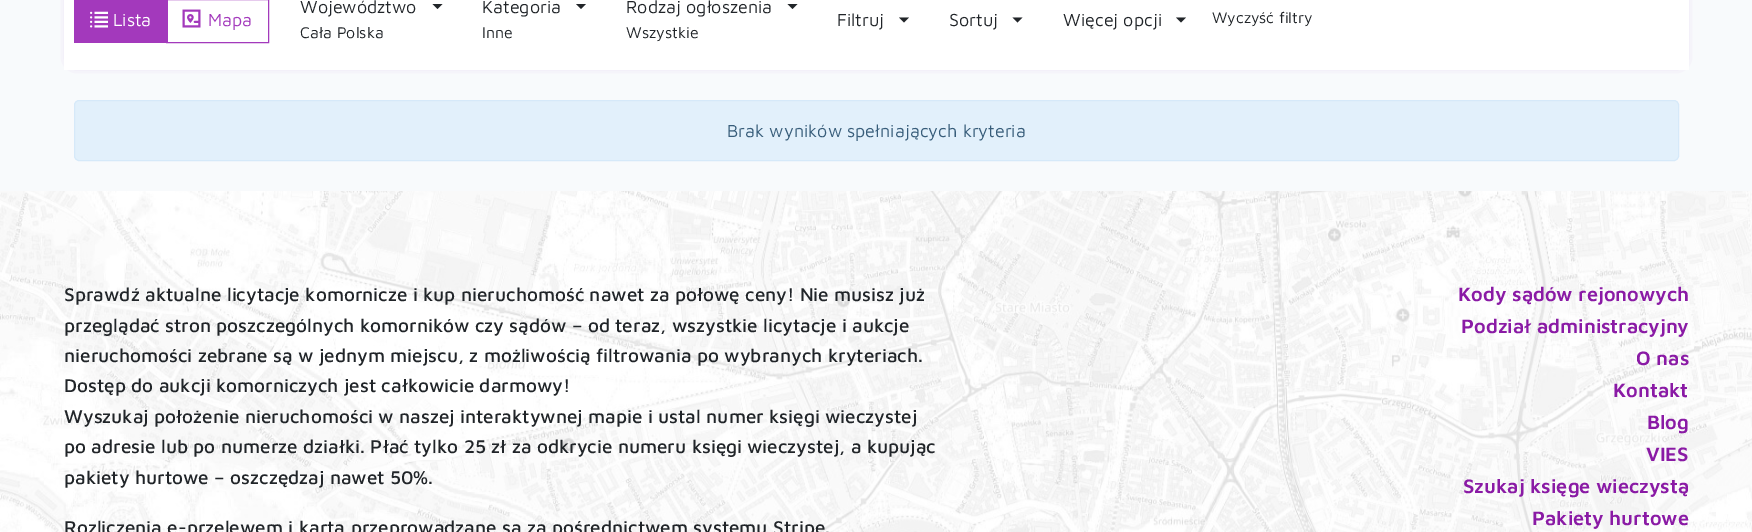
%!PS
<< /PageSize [1752 532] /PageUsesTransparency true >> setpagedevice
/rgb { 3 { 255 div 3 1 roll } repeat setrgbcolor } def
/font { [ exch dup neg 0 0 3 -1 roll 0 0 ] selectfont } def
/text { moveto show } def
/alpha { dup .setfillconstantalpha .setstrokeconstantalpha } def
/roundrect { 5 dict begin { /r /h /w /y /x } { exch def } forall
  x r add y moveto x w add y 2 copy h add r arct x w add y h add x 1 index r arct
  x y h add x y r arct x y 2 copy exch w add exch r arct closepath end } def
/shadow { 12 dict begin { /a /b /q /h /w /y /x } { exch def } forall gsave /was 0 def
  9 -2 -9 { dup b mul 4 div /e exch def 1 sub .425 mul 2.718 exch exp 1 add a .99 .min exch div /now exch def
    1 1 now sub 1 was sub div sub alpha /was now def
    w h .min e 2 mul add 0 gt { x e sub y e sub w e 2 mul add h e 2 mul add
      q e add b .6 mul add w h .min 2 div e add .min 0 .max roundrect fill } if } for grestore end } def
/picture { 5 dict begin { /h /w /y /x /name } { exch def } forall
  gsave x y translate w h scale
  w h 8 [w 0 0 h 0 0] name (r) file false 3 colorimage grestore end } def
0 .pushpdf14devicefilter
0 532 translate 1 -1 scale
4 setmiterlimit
248 250 252 rgb
0 0 1752 532 rectfill
163 57 188 rgb
74 -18 1605 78 0 6 1 shadow
255 255 255 rgb
64 0 1625 70 rectfill
163 57 188 rgb
166.5 -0.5 102 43 rectstroke
74 0 94 43 rectfill
(img_01.rgb) 90 11 18 17 picture
(img_02.rgb) 182 9 19 19 picture
33 37 41 rgb
432.5 4 moveto 10 0 rlineto -5 5 rlineto closepath fill
576 4 moveto 10 0 rlineto -5 5 rlineto closepath fill
787.5 4 moveto 10 0 rlineto -5 5 rlineto closepath fill
899 17.5 moveto 10 0 rlineto -5 5 rlineto closepath fill
1012.5 17.5 moveto 10 0 rlineto -5 5 rlineto closepath fill
1176 17.5 moveto 10 0 rlineto -5 5 rlineto closepath fill
226 240 251 rgb
74.5 100.5 1604 60 4.5 roundrect gsave fill grestore
214 233 249 rgb
stroke
(img_03.rgb) 0 191 1752 341 picture
/MavenPro-Regular 18 font
255 255 255 rgb
(Lista) 113 26 text
163 57 188 rgb
(Mapa) 208 26 text
33 37 41 rgb
(Województwo) 300 13 text
/MavenPro-Regular 16 font
(Cała Polska) 300 38 text
/MavenPro-Regular 18 font
(Kategoria) 482 13 text
/MavenPro-Regular 16 font
(Inne) 482 38 text
/MavenPro-Regular 18 font
(Rodzaj ogłoszenia) 626 13 text
/MavenPro-Regular 16 font
(Wszystkie) 626 38 text
/MavenPro-Regular 18 font
(Filtruj) 837 26 text
(Sortuj) 949 26 text
(Więcej opcji) 1063 26 text
/MavenPro-Regular 15.75 font
(Wyczyść filtry) 1212 23 text
/MavenPro-Regular 18 font
56 93 122 rgb
(Brak wyników spełniających kryteria) 727 137 text
/MavenPro-Medium 19 font
33 37 41 rgb
(Sprawdź aktualne licytacje komornicze i kup nieruchomość nawet za połowę ceny! Nie musisz już) 64 301 text
(przeglądać stron poszczególnych komorników czy sądów – od teraz, wszystkie licytacje i aukcje) 64 332 text
(nieruchomości zebrane są w jednym miejscu, z możliwością filtrowania po wybranych kryteriach.) 64 362 text
(Dostęp do aukcji komorniczych jest całkowicie darmowy!) 64 392 text
(Wyszukaj położenie nieruchomości w naszej interaktywnej mapie i ustal numer księgi wieczystej) 64 423 text
(po adresie lub po numerze działki. Płać tylko 25 zł za odkrycie numeru księgi) 64 453 text
(wieczystej, a kupując) 747 453 text
(pakiety hurtowe – oszczędzaj nawet 50%.) 64 484 text
(Rozliczenia e-przelewem i kartą przeprowadzane są za pośrednictwem systemu Stripe.) 64 534 text
/MavenPro-SemiBold 20 font
138 26 165 rgb
(Kody sądów rejonowych) 1458 301 text
(Podział administracyjny) 1461 333 text
(O nas) 1636 365 text
(Kontakt) 1613 397 text
(Blog) 1647 429 text
(VIES) 1646 461 text
(Szukaj księge wieczystą) 1463 493 text
(Pakiety hurtowe) 1532 525 text
.poppdf14devicefilter showpage
